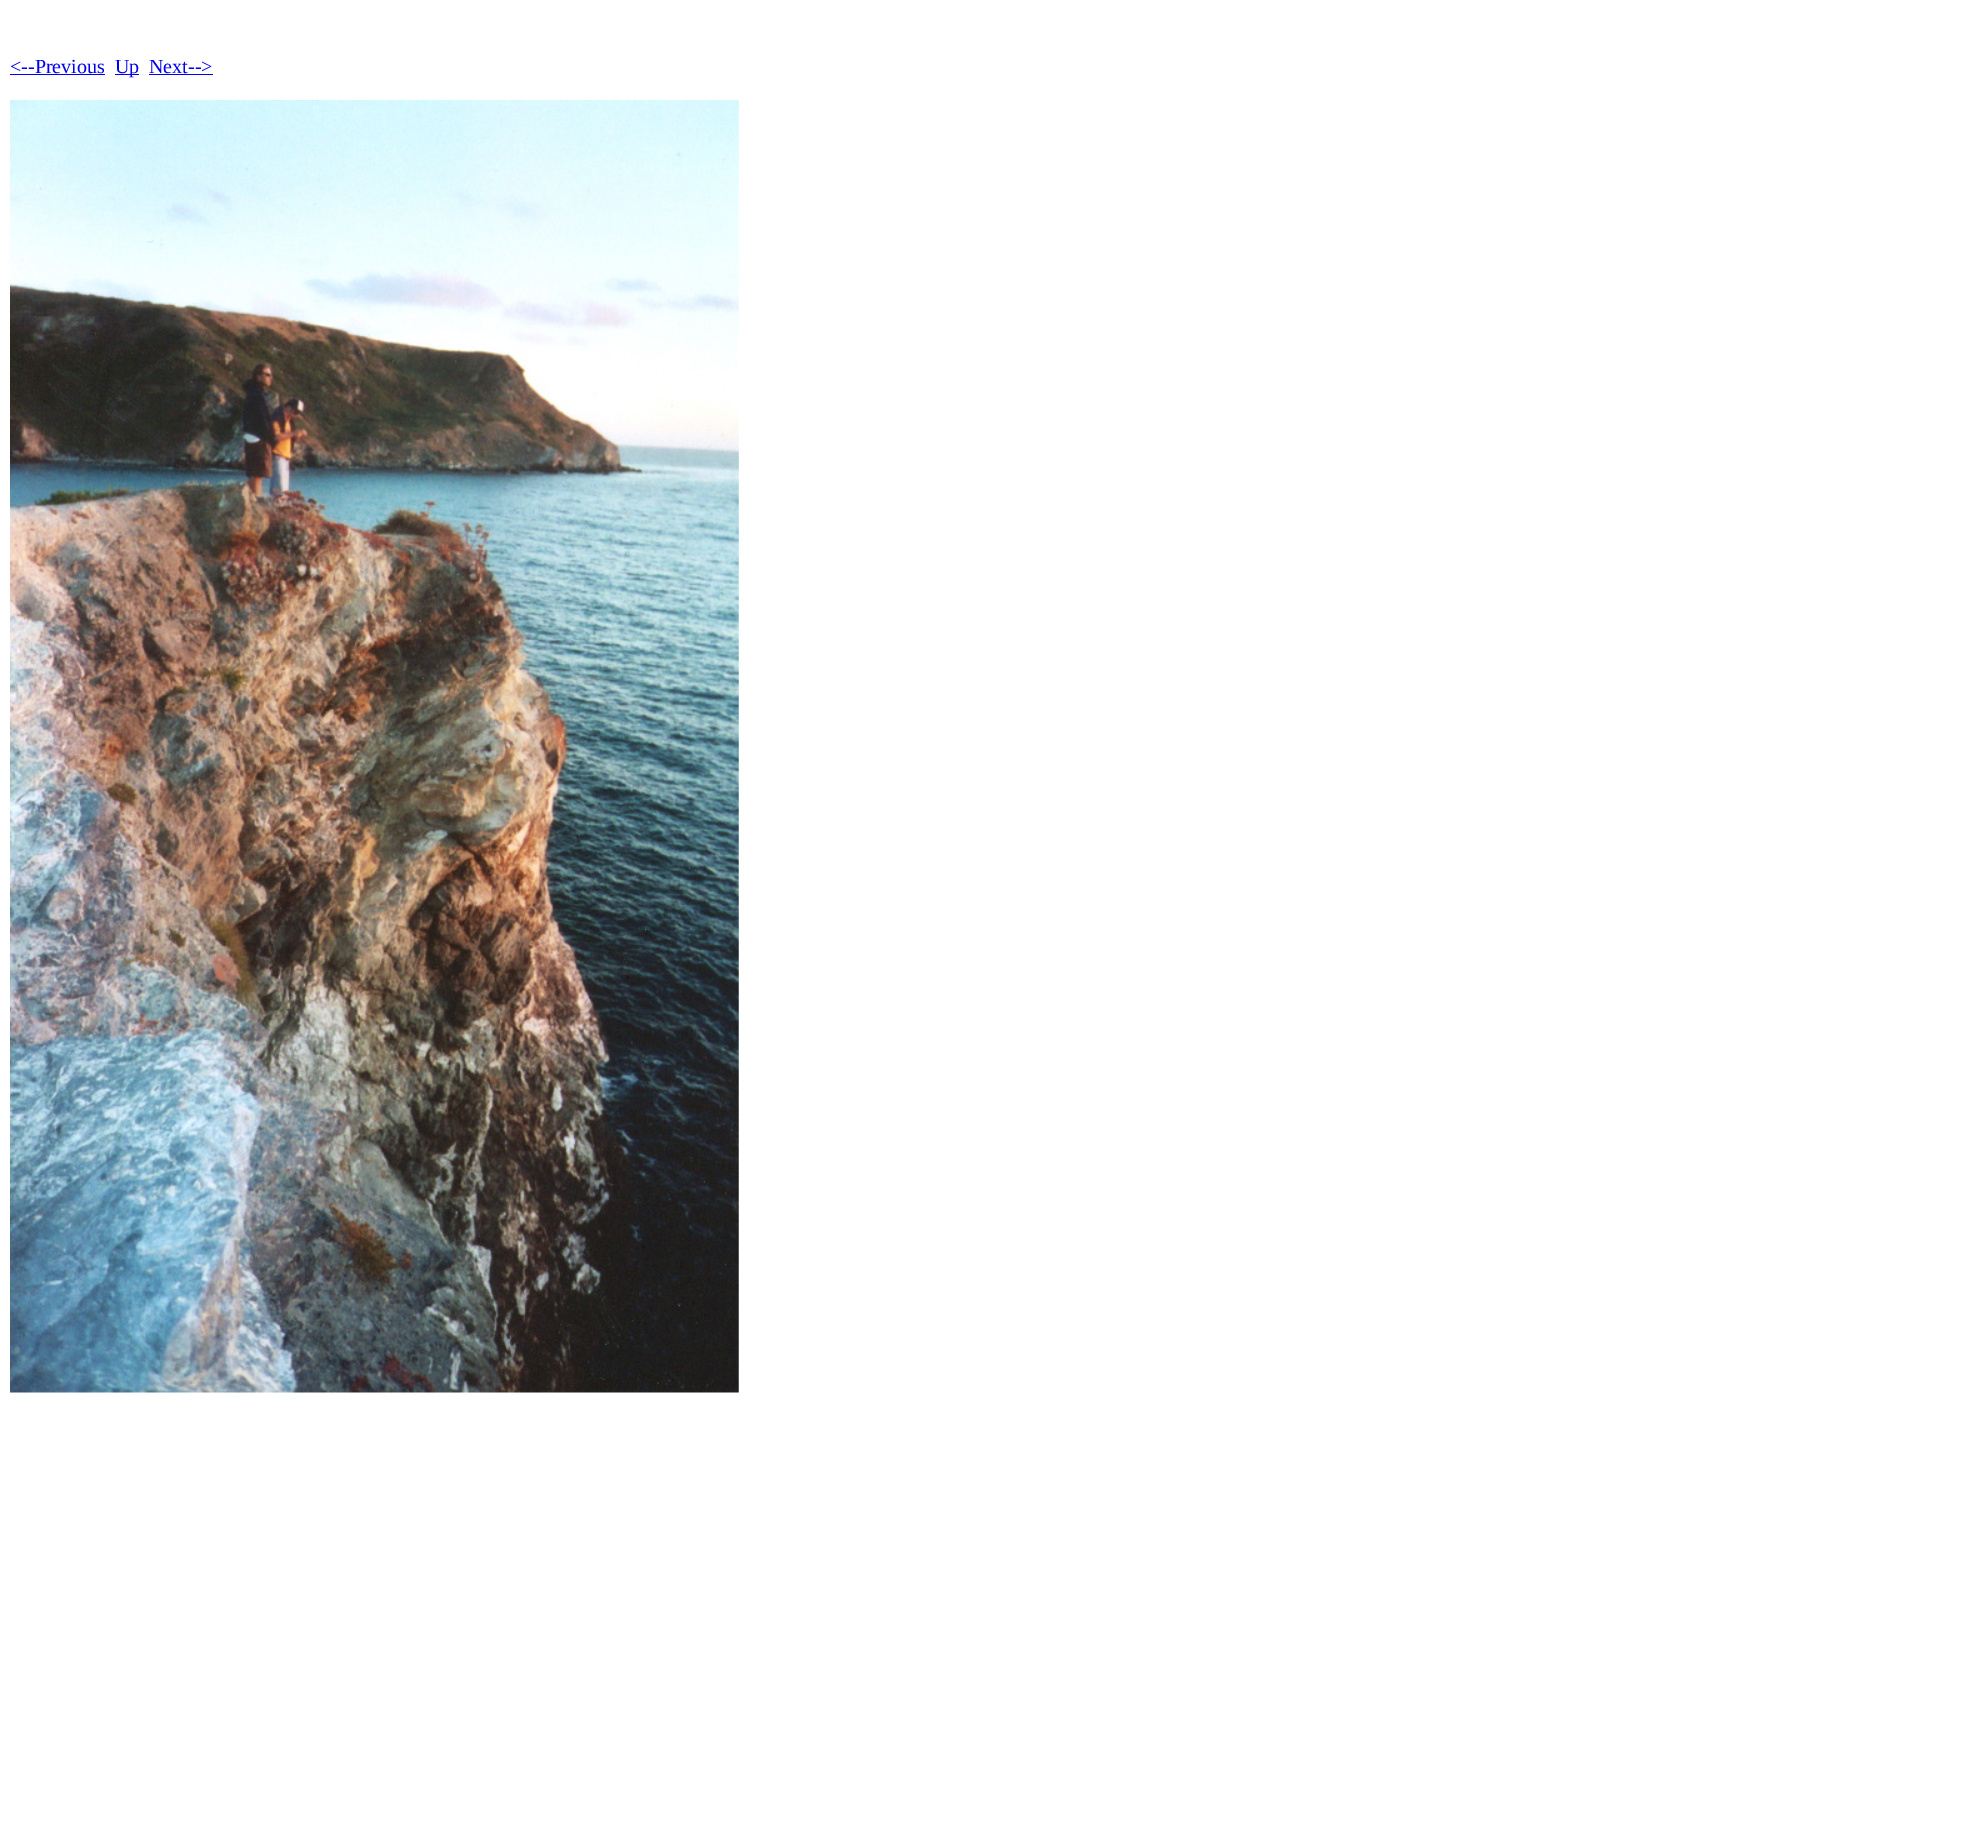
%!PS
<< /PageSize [1977 1836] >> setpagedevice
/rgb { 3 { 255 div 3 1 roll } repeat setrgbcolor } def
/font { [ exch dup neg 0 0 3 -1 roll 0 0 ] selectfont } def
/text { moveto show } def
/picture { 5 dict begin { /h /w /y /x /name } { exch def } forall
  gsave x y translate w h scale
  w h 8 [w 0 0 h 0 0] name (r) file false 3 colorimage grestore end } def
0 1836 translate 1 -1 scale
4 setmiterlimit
255 255 255 rgb
0 0 1977 1836 rectfill
0 0 238 rgb
10 74 95 1 rectfill
115 74 24 1 rectfill
149 74 64 1 rectfill
(img_01.rgb) 10 100 729 1293 picture
/LiberationSerif-Regular 20 font
(<--Previous) 10 73 text
(Up) 115 73 text
(Next-->) 149 73 text
showpage
